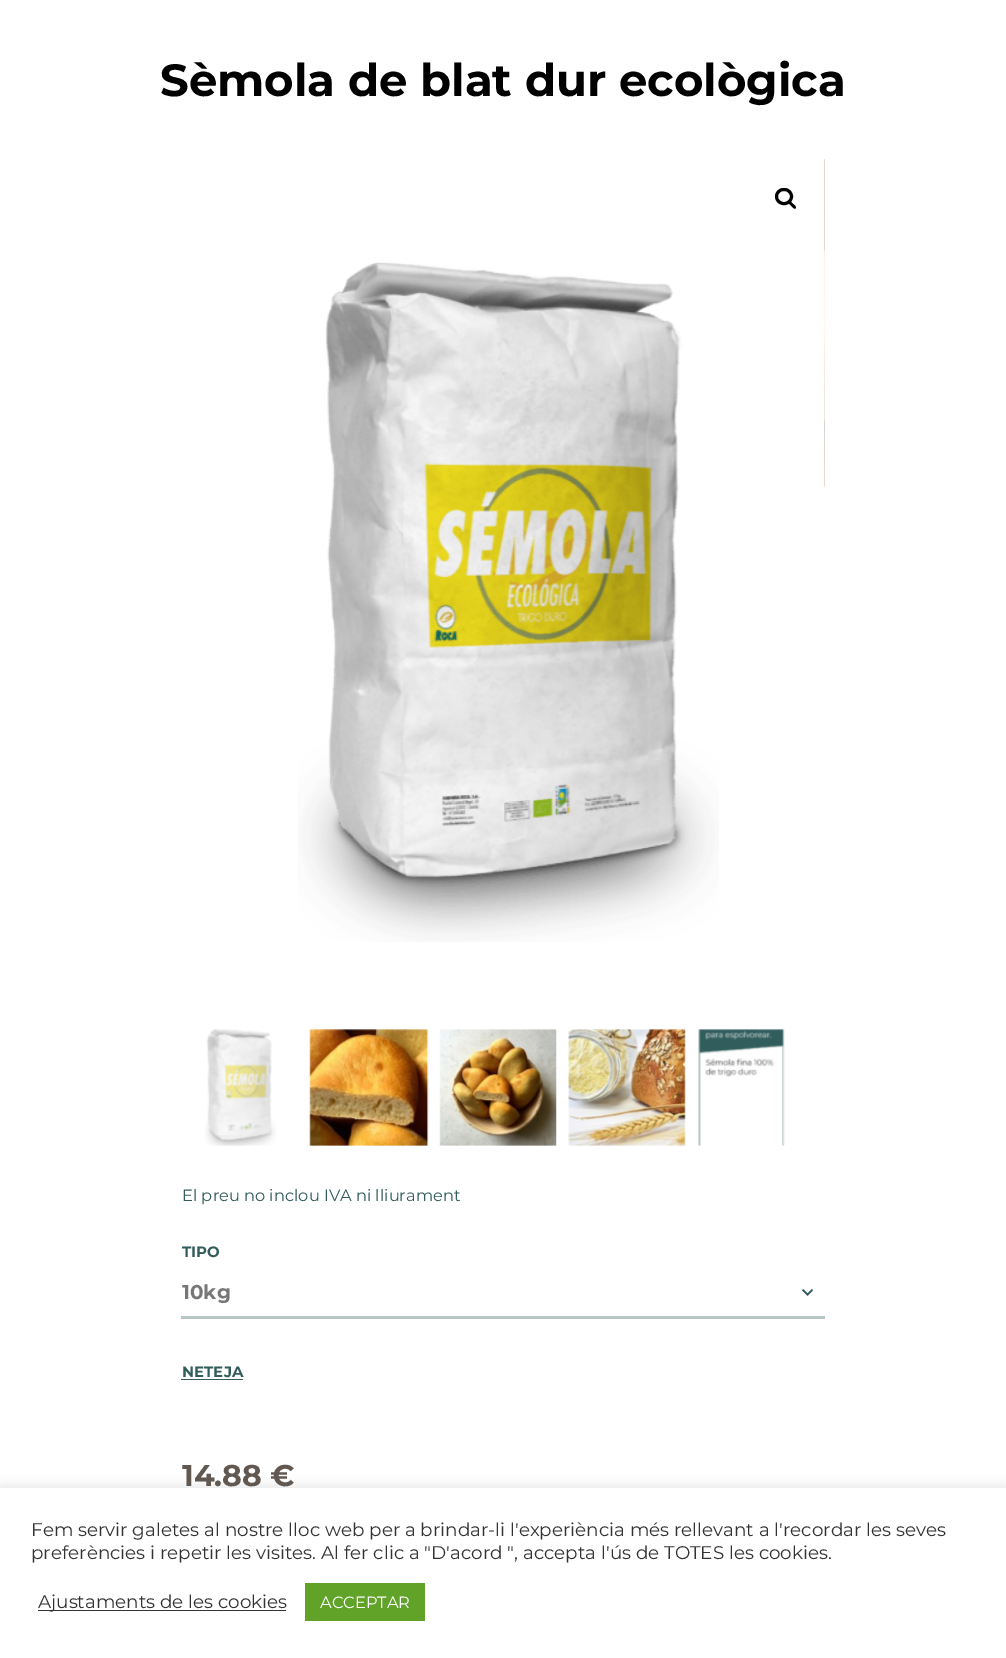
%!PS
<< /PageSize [1006 1658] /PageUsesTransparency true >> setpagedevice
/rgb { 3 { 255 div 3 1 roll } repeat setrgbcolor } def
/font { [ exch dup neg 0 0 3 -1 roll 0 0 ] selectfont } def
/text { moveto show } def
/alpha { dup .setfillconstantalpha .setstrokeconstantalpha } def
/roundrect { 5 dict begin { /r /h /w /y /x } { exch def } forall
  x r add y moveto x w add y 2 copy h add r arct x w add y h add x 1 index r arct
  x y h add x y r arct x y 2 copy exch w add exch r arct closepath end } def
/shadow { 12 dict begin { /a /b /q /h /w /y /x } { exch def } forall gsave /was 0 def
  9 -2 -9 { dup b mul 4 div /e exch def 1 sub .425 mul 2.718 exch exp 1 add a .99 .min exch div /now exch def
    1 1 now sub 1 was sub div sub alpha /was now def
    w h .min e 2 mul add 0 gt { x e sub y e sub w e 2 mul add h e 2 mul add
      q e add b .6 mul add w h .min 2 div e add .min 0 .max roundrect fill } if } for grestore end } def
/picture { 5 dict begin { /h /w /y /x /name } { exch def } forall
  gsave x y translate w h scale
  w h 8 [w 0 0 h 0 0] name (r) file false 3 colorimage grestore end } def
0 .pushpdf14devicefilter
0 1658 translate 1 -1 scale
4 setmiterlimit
255 255 255 rgb
0 0 1006 1658 rectfill
(img_01.rgb) 298 262 421 680 picture
(img_02.rgb) 824 159 1 329 picture
0 0 0 rgb
3 setlinewidth
776.5 189.5 15 14 7 roundrect stroke
788.5 201 moveto 1.5 -1 3.5 2 4.5 3 rcurveto 1 0.5 4 3 2.5 4.5 rcurveto -1.5 1 -3.5 -2 -4.5 -3 rcurveto -0.5 -0.5 -4 -3 -2.5 -4.5 rcurveto closepath fill
(img_03.rgb) 205 1029 71 117 picture
(img_04.rgb) 309 1029 120 117 picture
(img_05.rgb) 439 1029 118 117 picture
(img_06.rgb) 568 1029 118 117 picture
(img_07.rgb) 698 1029 87 117 picture
(img_08.rgb) 801 1289 13 7 picture
184 198 198 rgb
181 1316 644 3 rectfill
51 93 92 rgb
181 1379 62 1 rectfill
172 171 171 rgb
0 1486 1006 172 0 6 0.3 shadow
255 255 255 rgb
0 1488 1006 170 rectfill
51 51 51 rgb
38 1610 248 1 rectfill
97 162 41 rgb
305 1583 120 38 rectfill
/Montserrat-Bold 45 font
0 0 0 rgb
(Sèmola de blat dur ecològica) 160 96 text
/Montserrat-Regular 16.25 font
51 93 92 rgb
(El preu no inclou IVA ni lliurament) 182 1201 text
/Montserrat-Bold 15 font
(TIPO) 182 1257 text
/Montserrat-Bold 20 font
119 119 119 rgb
(10kg) 182 1299 text
/Montserrat-Bold 15 font
51 93 92 rgb
(NETEJA) 182 1377 text
/Montserrat-Bold 30 font
97 88 81 rgb
(14.88 €) 182 1486 text
/Montserrat-Regular 18.35 font
51 51 51 rgb
(Fem servir galetes al nostre lloc web per a brindar-li l'experiència més rellevant a l'recordar les seves) 31 1536 text
(preferències i repetir les visites. Al fer clic a "D'acord ", accepta l'ús de TOTES les cookies.) 31 1559 text
(Ajustaments de les cookies) 38 1608 text
/Montserrat-Regular 16.25 font
255 255 255 rgb
(ACCEPTAR) 320 1608 text
.poppdf14devicefilter showpage
